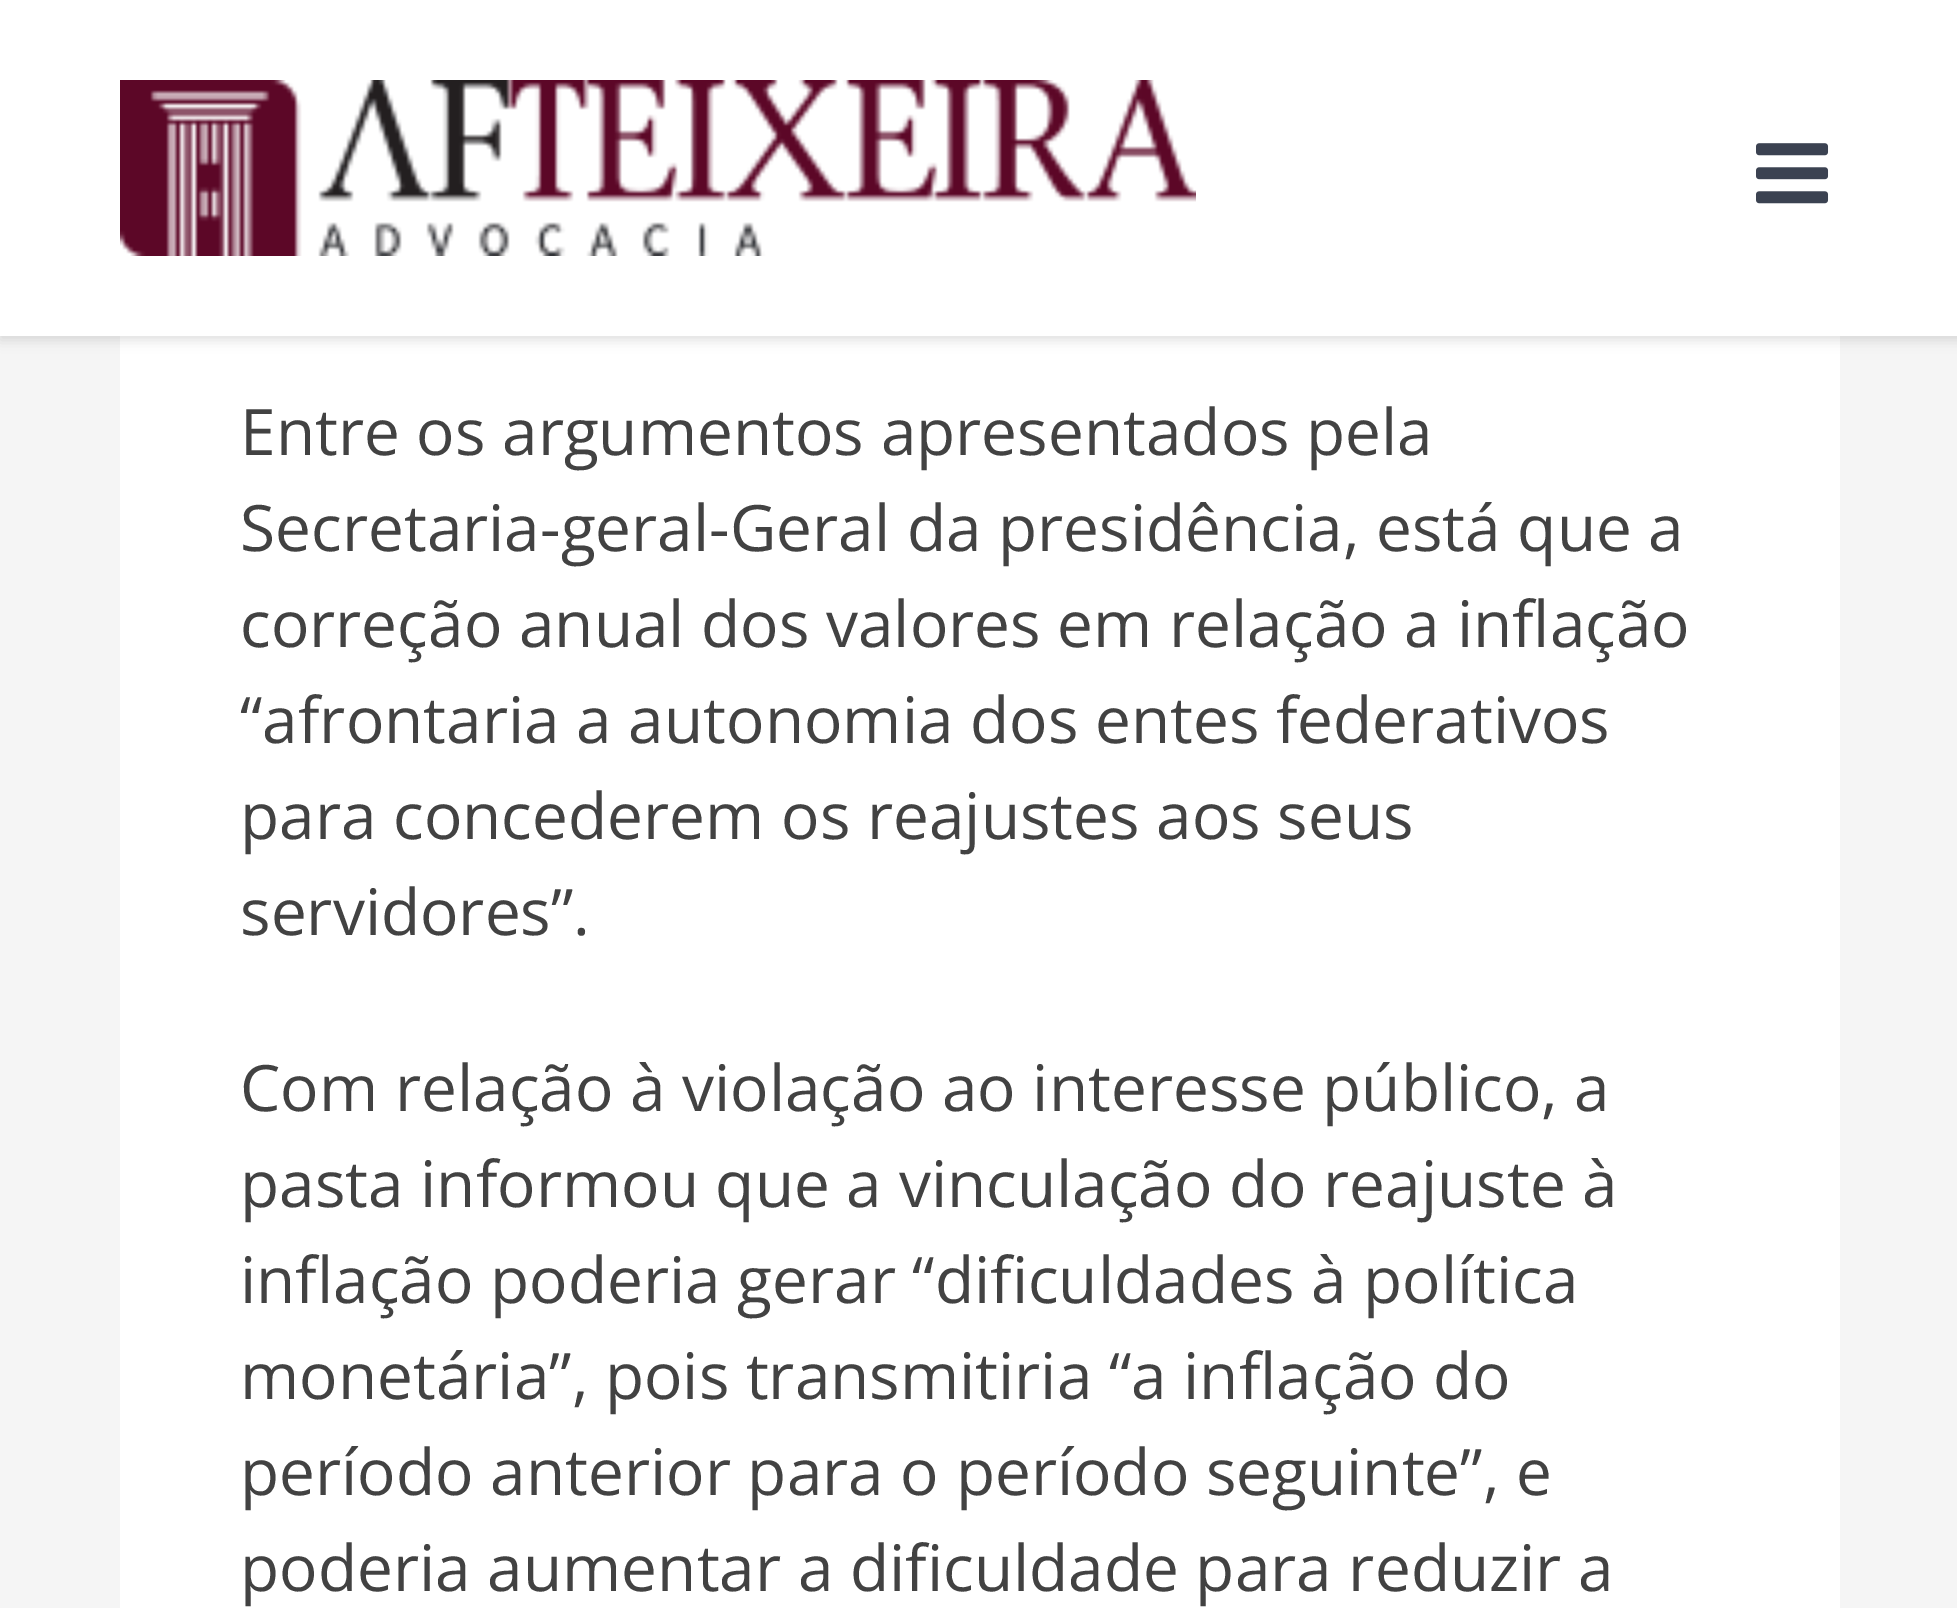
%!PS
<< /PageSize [1957 1608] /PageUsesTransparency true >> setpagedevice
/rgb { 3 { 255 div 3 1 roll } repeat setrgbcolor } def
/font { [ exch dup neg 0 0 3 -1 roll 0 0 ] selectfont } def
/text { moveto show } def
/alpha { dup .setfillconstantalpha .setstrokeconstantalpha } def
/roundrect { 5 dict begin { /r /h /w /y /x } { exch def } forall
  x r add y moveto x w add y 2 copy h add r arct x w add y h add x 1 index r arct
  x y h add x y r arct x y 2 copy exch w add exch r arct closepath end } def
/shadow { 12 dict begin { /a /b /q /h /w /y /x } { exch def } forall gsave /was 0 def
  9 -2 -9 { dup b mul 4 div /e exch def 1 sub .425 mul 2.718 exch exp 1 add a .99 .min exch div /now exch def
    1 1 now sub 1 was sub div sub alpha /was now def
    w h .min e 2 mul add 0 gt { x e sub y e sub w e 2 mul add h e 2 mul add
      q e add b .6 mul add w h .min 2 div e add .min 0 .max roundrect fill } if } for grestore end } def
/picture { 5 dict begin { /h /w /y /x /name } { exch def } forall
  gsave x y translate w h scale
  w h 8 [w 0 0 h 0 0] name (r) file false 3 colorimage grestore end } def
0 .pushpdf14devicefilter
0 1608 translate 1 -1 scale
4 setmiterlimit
245 245 245 rgb
0 0 1957 1608 rectfill
255 255 255 rgb
120 336 1720 1272 rectfill
0 0 0 rgb
0 4 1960 336 0 6 0.12 shadow
255 255 255 rgb
0 0 1957 336 rectfill
(img_01.rgb) 120 80 1076 176 picture
(img_02.rgb) 1756 143 73 61 picture
/OpenSans-Regular 64 font
66 66 66 rgb
(Entre os argumentos apresentados pela) 240 455 text
(Secretaria-geral-Geral da presidência, está que a) 240 551 text
(correção anual dos valores em relação a inflação) 240 647 text
(“afrontaria a autonomia dos entes federativos) 240 743 text
(para concederem os reajustes aos seus) 240 839 text
(servidores”.) 240 935 text
(Com relação à violação ao interesse público, a) 240 1111 text
(pasta informou que a vinculação do reajuste à) 240 1207 text
(inflação poderia gerar “dificuldades à política) 240 1303 text
(monetária”, pois transmitiria “a inflação do) 240 1399 text
(período anterior para o período seguinte”, e) 240 1495 text
(poderia aumentar a dificuldade para reduzir a) 240 1591 text
.poppdf14devicefilter showpage
